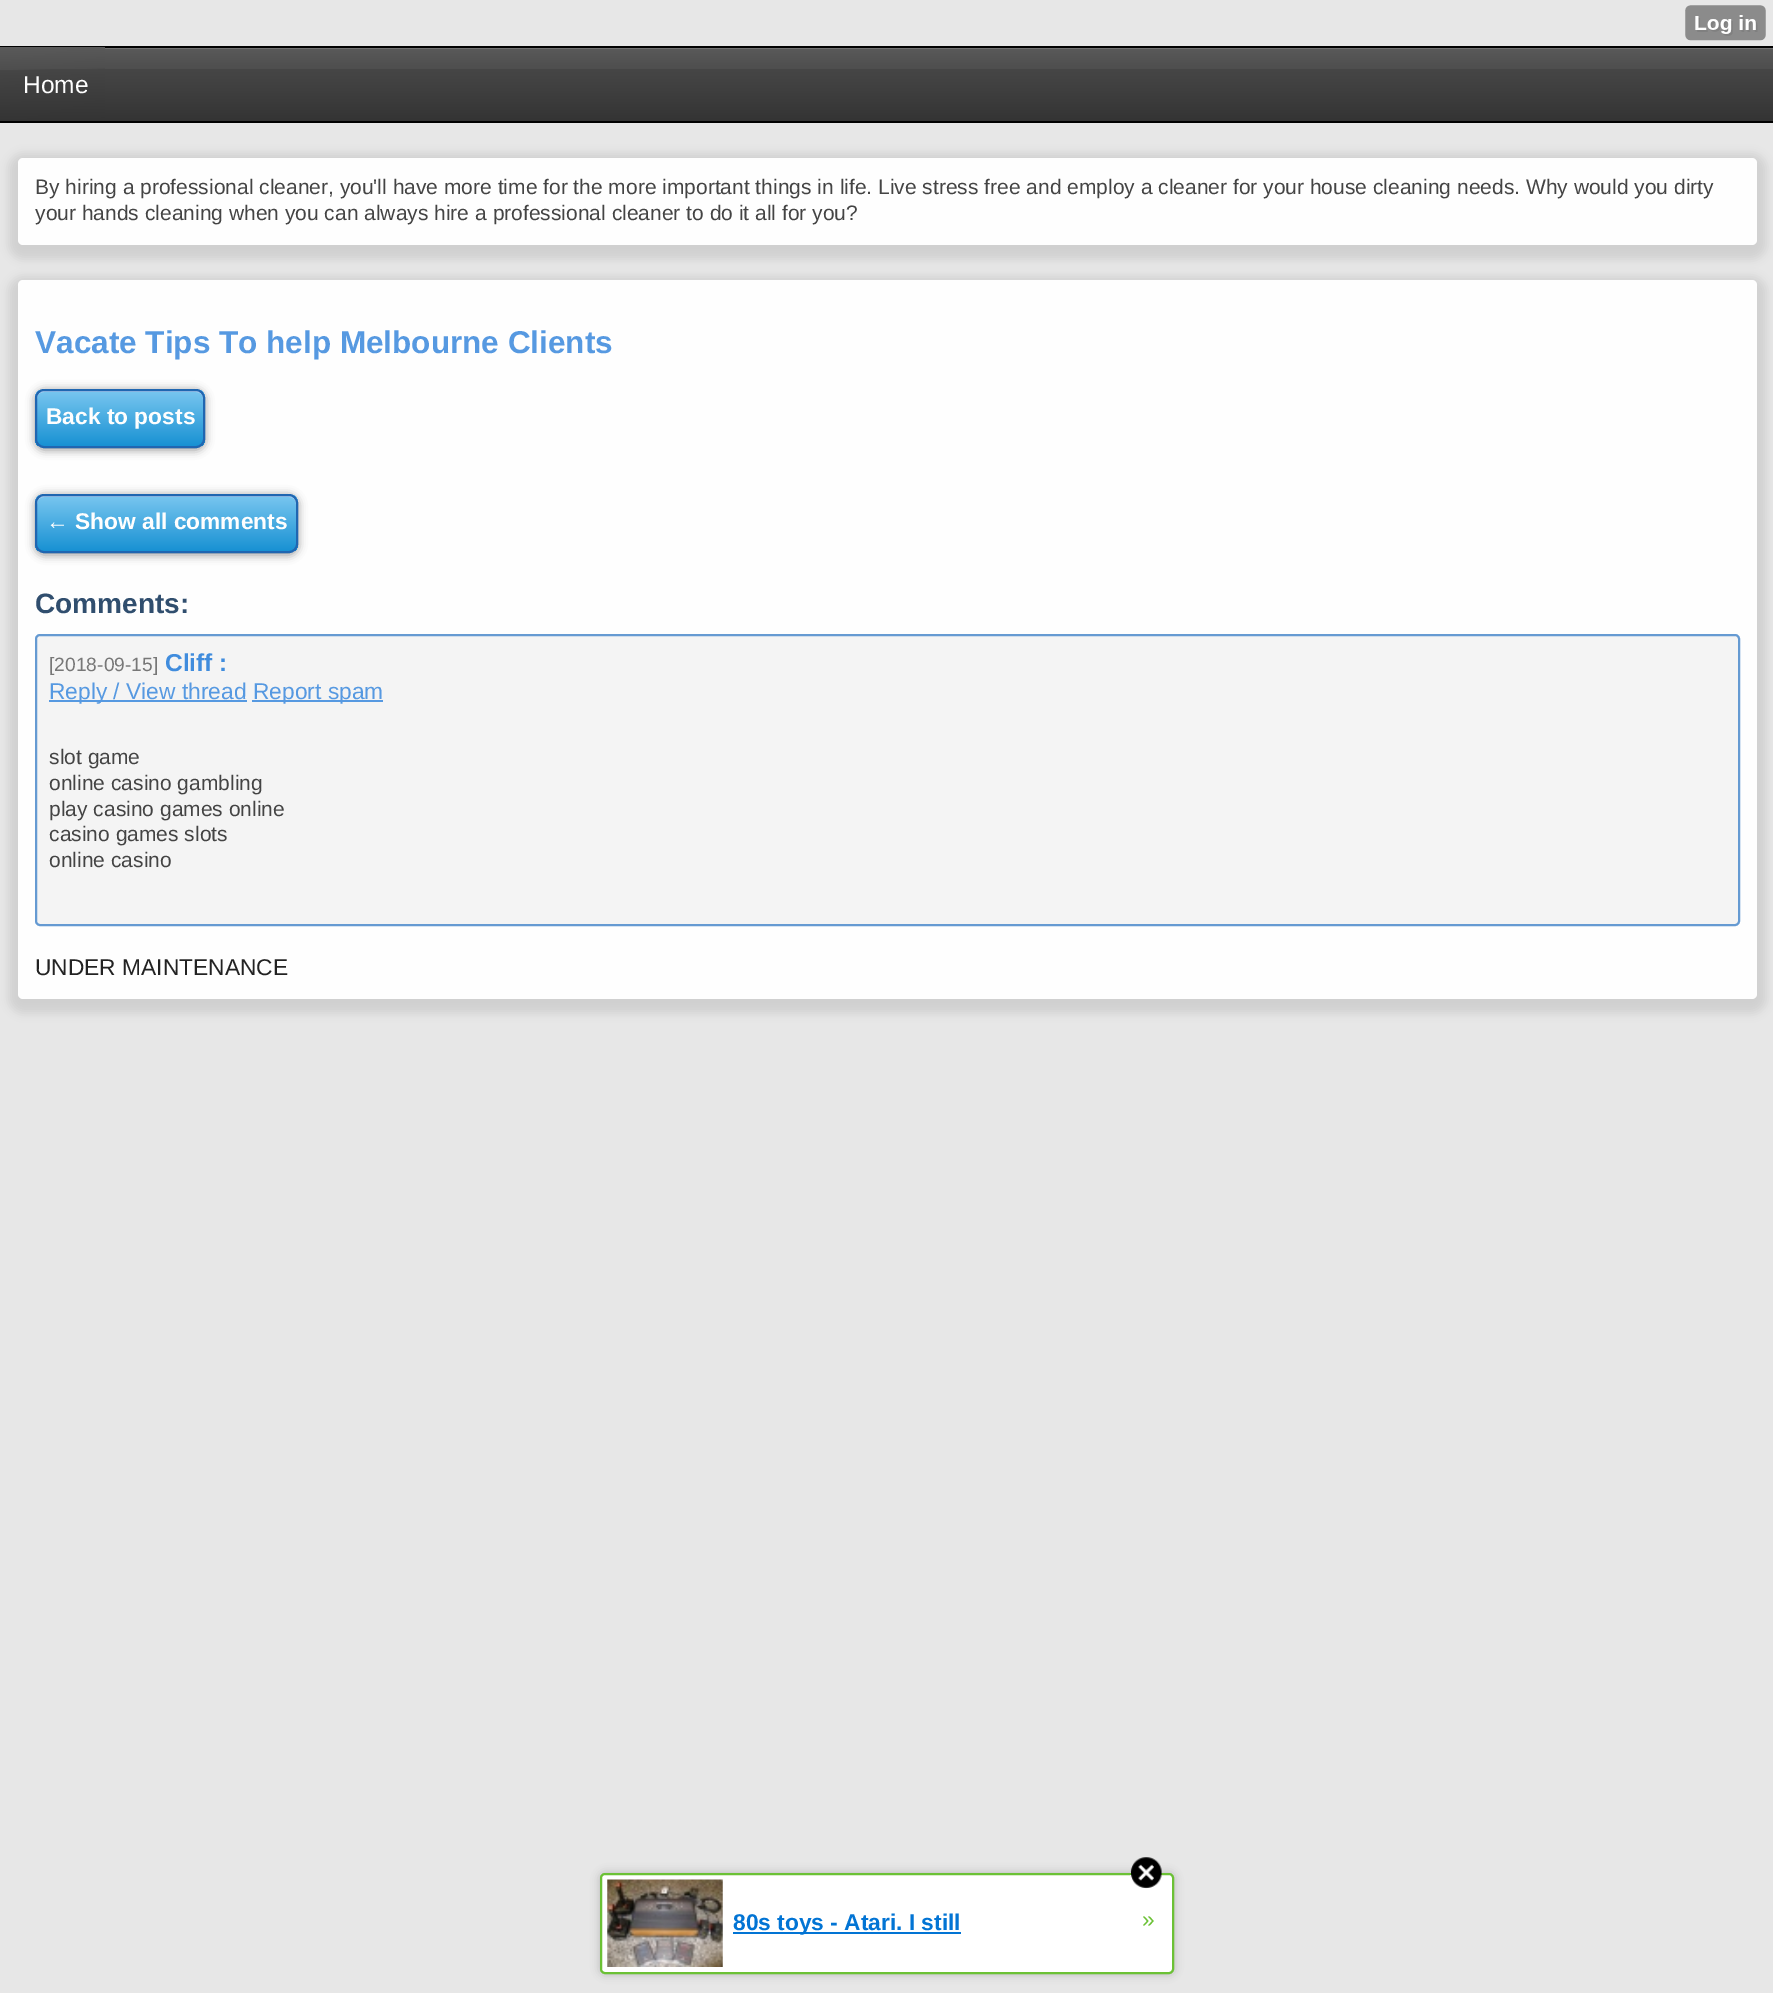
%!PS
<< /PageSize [1773 1993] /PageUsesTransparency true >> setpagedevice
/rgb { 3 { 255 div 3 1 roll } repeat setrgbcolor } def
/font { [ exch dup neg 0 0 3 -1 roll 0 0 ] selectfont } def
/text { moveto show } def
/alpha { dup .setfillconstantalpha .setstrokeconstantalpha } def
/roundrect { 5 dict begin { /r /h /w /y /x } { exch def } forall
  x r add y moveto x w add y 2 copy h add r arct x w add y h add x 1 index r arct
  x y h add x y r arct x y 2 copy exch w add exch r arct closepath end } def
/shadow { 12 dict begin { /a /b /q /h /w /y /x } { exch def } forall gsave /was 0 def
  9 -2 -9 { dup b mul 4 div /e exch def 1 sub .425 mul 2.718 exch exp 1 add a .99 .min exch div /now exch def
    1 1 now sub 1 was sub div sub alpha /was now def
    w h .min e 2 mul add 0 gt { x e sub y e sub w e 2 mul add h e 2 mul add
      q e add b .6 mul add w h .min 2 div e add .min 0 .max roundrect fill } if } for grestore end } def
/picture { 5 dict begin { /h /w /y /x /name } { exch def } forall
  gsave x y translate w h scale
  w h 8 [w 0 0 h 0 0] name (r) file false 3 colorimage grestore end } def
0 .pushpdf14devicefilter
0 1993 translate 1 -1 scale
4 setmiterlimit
231 231 231 rgb
0 0 1773 1993 rectfill
(img_01.rgb) 1685 5 81 36 picture
gsave 105 49 moveto 1668 0 rlineto 0 72 rlineto -1668 0 rlineto closepath clip newpath
<< /ShadingType 2 /ColorSpace /DeviceRGB /Coords [887 47 887 121] /Extend [true true] /Function << /FunctionType 3 /Domain [0 1] /Functions [<< /FunctionType 2 /Domain [0 1] /C0 [0.353 0.353 0.353] /C1 [0.306 0.306 0.306] /N 1 >> << /FunctionType 2 /Domain [0 1] /C0 [0.275 0.275 0.275] /C1 [0.204 0.204 0.204] /N 1 >>] /Bounds [0.3] /Encode [0 1 0 1] >> >> shfill grestore
114 114 114 rgb
105 48 1668 1 rectfill
1 1 1 rgb
0 46 1773 2 rectfill
0 121 1773 2 rectfill
gsave 0 47 moveto 105 0 rlineto 0 74 rlineto -105 0 rlineto closepath clip newpath
<< /ShadingType 2 /ColorSpace /DeviceRGB /Coords [52 47 53 121] /Extend [true true] /Function << /FunctionType 3 /Domain [0 1] /Functions [<< /FunctionType 2 /Domain [0 1] /C0 [0.353 0.353 0.353] /C1 [0.306 0.306 0.306] /N 1 >> << /FunctionType 2 /Domain [0 1] /C0 [0.275 0.275 0.275] /C1 [0.204 0.204 0.204] /N 1 >>] /Bounds [0.3] /Encode [0 1 0 1] >> >> shfill grestore
0 0 0 rgb
9 154 1757 105 14 4.5 0.1 shadow
254 254 254 rgb
18 158 1739 87 5 roundrect fill
0 0 0 rgb
9 277 1757 736 14 4.5 0.1 shadow
254 254 254 rgb
18 280 1739 719 5 roundrect fill
0 0 0 rgb
35 390 170 60 9 4.5 0.4 shadow
gsave
35 389 170 59 9 roundrect clip newpath
gsave 35 390 moveto 170 0 rlineto 0 56 rlineto -170 0 rlineto closepath clip newpath
<< /ShadingType 2 /ColorSpace /DeviceRGB /Coords [120 390 120 446] /Extend [true true] /Function << /FunctionType 2 /Domain [0 1] /C0 [0.478 0.78 0.941] /C1 [0.094 0.569 0.827] /N 1 >> >> shfill grestore
grestore
173 205 240 rgb
44 392 moveto 152 0 rlineto 4 0 7 3 7 7 rcurveto 0 -2 rlineto 0 -4 -3 -7 -7 -7 rcurveto -152 0 rlineto -4 0 -7 3 -7 7 rcurveto 0 2 rlineto 0 -4 3 -7 7 -7 rcurveto closepath fill
32 102 177 rgb
2 setlinewidth
36 390 168 57 8 roundrect stroke
0 0 0 rgb
35 495 263 60 9 4.5 0.4 shadow
gsave
35 494 263 59 9 roundrect clip newpath
gsave 35 495 moveto 263 0 rlineto 0 56 rlineto -263 0 rlineto closepath clip newpath
<< /ShadingType 2 /ColorSpace /DeviceRGB /Coords [166 495 166 551] /Extend [true true] /Function << /FunctionType 2 /Domain [0 1] /C0 [0.478 0.78 0.941] /C1 [0.094 0.569 0.827] /N 1 >> >> shfill grestore
grestore
173 205 240 rgb
44 497 moveto 245 0 rlineto 4 0 7 3 7 7 rcurveto 0 -2 rlineto 0 -4 -3 -7 -7 -7 rcurveto -245 0 rlineto -4 0 -7 3 -7 7 rcurveto 0 2 rlineto 0 -4 3 -7 7 -7 rcurveto closepath fill
32 102 177 rgb
36 495 261 57 8 roundrect stroke
244 244 244 rgb
36 635 1703 290 4 roundrect gsave fill grestore
101 154 210 rgb
stroke
86 153 225 rgb
49 700 198 2 rectfill
252 700 131 2 rectfill
0 0 0 rgb
600 1873 574 101 5 4.5 0.2 shadow
255 255 255 rgb
601 1874 572 99 4 roundrect gsave fill grestore
107 193 53 rgb
stroke
(img_02.rgb) 1130 1857 32 32 picture
(img_03.rgb) 607 1879 116 88 picture
2 116 212 rgb
733 1932 228 2 rectfill
/LiberationSans-Regular 24.5 font
254 254 254 rgb
(Home) 23 93 text
/LiberationSans-Regular 21 font
68 68 68 rgb
(By hiring a professional cleaner, you'll have more time for the more important things in life. Live stress free and employ a cleaner for your house cleaning needs. Why would you dirty) 35 194 text
(your hands cleaning when you can always hire a professional cleaner to do it all for you?) 35 220 text
/LiberationSans-Bold 31.5 font
86 153 225 rgb
(Vacate Tips To help Melbourne Clients) 35 353 text
/LiberationSans-Bold 22.75 font
254 254 254 rgb
(Back to posts) 46 424 text
(← Show all comments) 46 529 text
/LiberationSans-Bold 28 font
48 78 110 rgb
(Comments:) 35 613 text
/LiberationSans-Regular 19.25 font
119 119 119 rgb
([2018-09-15]) 49 671 text
/LiberationSans-Bold 24.5 font
64 140 221 rgb
(Cliff :) 165 671 text
/LiberationSans-Regular 22.75 font
86 153 225 rgb
(Reply / View thread) 49 699 text
(Report spam) 253 699 text
/LiberationSans-Regular 21 font
68 68 68 rgb
(slot game) 49 764 text
(online casino gambling) 49 790 text
(play casino games online) 49 816 text
(casino games slots) 49 841 text
(online casino) 49 867 text
/LiberationSans-Regular 22.75 font
34 34 34 rgb
(UNDER MAINTENANCE) 35 975 text
/LiberationSans-Bold 22.75 font
2 116 212 rgb
(80s toys - Atari. I still) 733 1930 text
/LiberationSans-Regular 22.75 font
107 193 53 rgb
(») 1142 1927 text
.poppdf14devicefilter showpage
